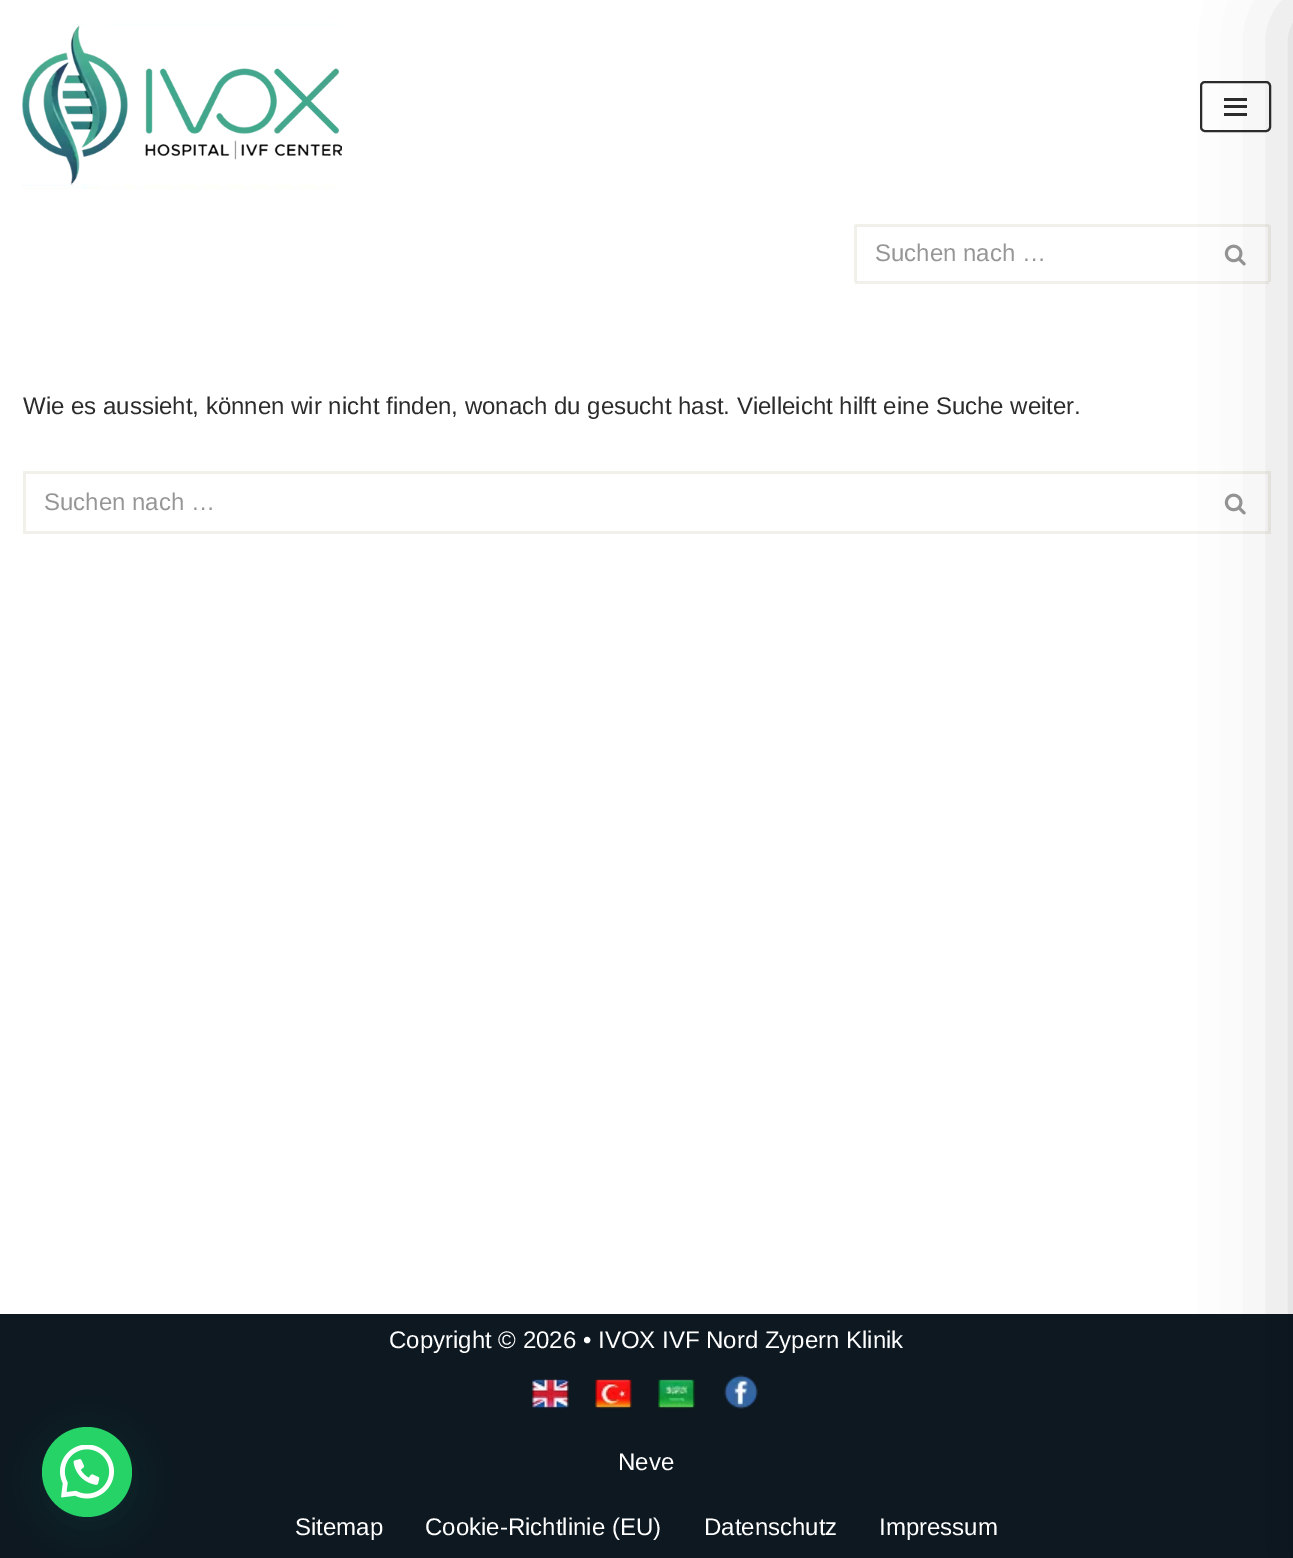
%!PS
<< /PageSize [1293 1558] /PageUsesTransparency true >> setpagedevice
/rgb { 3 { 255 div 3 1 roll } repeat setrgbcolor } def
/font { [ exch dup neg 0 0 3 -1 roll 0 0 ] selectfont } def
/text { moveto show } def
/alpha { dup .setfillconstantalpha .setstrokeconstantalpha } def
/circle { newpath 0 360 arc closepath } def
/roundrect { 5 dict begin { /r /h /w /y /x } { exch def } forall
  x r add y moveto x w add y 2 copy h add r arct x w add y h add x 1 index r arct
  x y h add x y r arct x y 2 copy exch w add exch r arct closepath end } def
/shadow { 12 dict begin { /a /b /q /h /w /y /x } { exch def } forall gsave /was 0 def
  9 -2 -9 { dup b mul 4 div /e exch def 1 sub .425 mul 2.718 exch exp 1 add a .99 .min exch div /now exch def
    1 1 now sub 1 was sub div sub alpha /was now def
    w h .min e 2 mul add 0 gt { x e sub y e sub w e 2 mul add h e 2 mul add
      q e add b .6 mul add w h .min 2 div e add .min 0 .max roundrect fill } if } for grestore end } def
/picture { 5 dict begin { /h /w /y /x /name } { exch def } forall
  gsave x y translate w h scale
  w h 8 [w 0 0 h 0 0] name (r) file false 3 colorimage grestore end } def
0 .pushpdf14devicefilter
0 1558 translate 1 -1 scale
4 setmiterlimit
255 255 255 rgb
0 0 1293 1558 rectfill
(img_01.rgb) 22 23 320 166 picture
44 44 44 rgb
2 setlinewidth
1201 82 69 49 4 roundrect stroke
1224 98 23 3 rectfill
1224 105 23 3 rectfill
1224 113 23 3 rectfill
241 240 234 rgb
855 224 414 3 rectfill
855 281 348 3 rectfill
854 225 3 57 rectfill
1268 225 3 57 rectfill
1203 281 66 3 rectfill
(img_02.rgb) 1224 244 22 22 picture
23 471 1248 3 rectfill
23 531 1180 3 rectfill
23 471 3 63 rectfill
1268 471 3 63 rectfill
1203 531 68 3 rectfill
(img_02.rgb) 1224 493 22 22 picture
13 24 33 rgb
0 1314 1293 244 rectfill
(img_03.rgb) 532 1378 37 31 picture
(img_04.rgb) 595 1378 37 31 picture
(img_05.rgb) 658 1379 37 30 picture
(img_06.rgb) 724 1375 34 34 picture
0 0 0 rgb
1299 15 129 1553 0 45 0.2 shadow
7 94 84 rgb
44 1436 90 90 45 18 0.24 shadow
37 211 102 rgb
87 1472 45 circle fill
(img_07.rgb) 60 1445 54 54 picture
/LiberationSans-Regular 24 font
150 150 150 rgb
(Suchen nach …) 875 261 text
44 44 44 rgb
(Wie es aussieht, können wir nicht finden, wonach du gesucht hast. Vielleicht hilft eine Suche weiter.) 23 414 text
150 150 150 rgb
(Suchen nach …) 44 510 text
255 255 255 rgb
(Copyright © 2026 • IVOX IVF Nord Zypern Klinik) 389 1348 text
(Neve) 618 1470 text
(Sitemap) 295 1535 text
(Cookie-Richtlinie \(EU\)) 425 1535 text
(Datenschutz) 704 1535 text
(Impressum) 879 1535 text
.poppdf14devicefilter showpage
